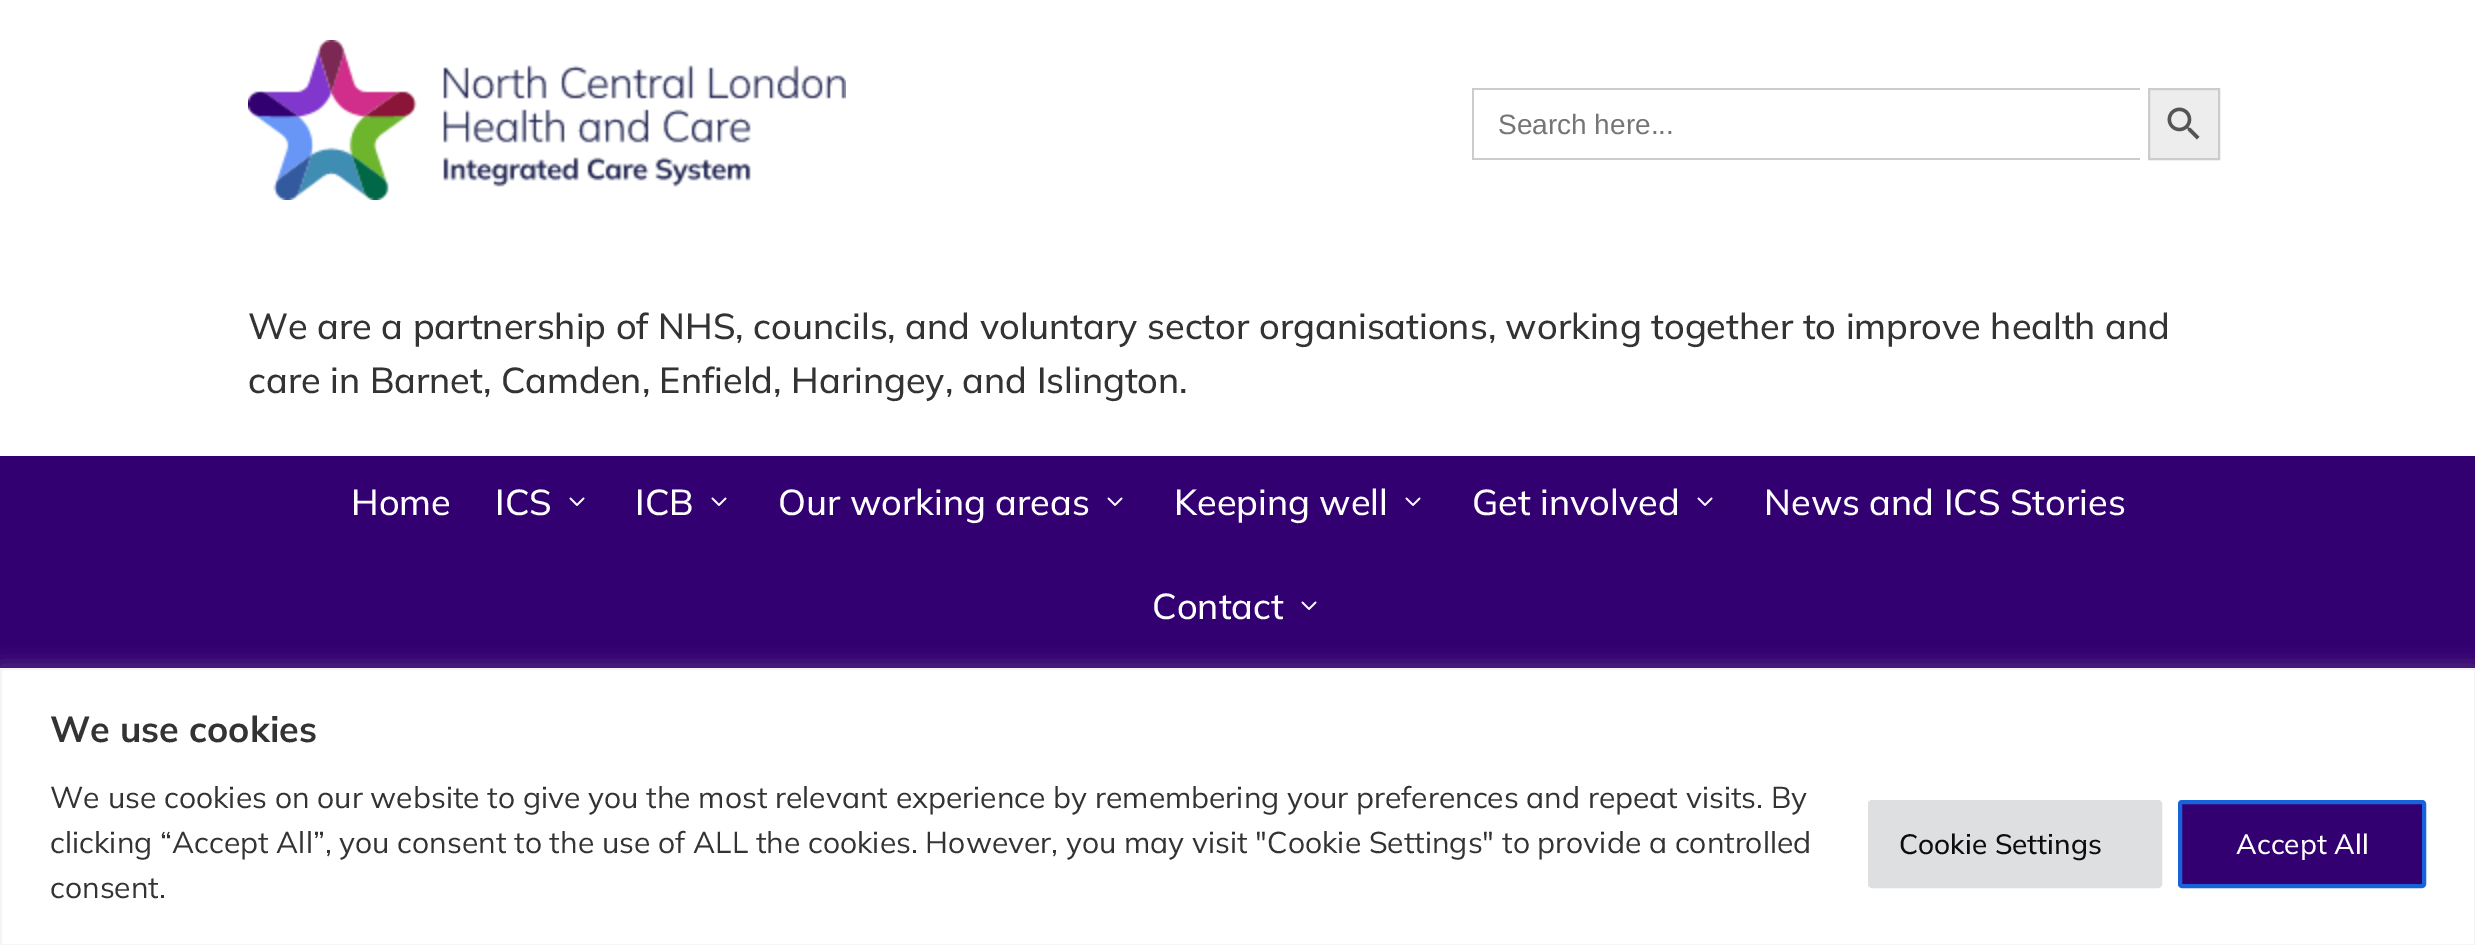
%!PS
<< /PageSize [2475 945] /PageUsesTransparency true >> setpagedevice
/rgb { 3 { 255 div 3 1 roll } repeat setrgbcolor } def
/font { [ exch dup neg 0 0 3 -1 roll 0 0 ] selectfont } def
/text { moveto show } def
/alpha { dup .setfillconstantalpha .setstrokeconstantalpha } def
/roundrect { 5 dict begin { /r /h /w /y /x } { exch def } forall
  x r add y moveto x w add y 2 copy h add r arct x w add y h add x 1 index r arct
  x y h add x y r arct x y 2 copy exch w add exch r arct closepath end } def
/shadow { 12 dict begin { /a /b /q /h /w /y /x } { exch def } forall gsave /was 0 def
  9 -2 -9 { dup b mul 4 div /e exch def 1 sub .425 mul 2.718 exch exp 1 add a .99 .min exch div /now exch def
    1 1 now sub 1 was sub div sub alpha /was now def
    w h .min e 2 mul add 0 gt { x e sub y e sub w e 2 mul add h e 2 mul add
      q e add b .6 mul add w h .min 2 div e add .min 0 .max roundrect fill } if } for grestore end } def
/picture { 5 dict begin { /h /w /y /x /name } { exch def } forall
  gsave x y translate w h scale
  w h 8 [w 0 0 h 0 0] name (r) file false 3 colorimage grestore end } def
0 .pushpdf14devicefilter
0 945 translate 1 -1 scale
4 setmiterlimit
255 255 255 rgb
0 0 2475 945 rectfill
(img_01.rgb) 248 40 598 160 picture
204 204 204 rgb
1472 88 668 2 rectfill
1472 158 668 2 rectfill
1472 88 2 72 rectfill
237 237 237 rgb
2149 89 moveto 70 0 rlineto 0 70 rlineto -70 0 rlineto closepath gsave fill grestore
204 204 204 rgb
2 setlinewidth
stroke
(img_02.rgb) 2167 107 33 33 picture
51 0 114 rgb
0 456 2475 212 rectfill
(img_03.rgb) 569 497 16 9 picture
(img_03.rgb) 711 497 16 9 picture
(img_03.rgb) 1107 497 16 9 picture
(img_03.rgb) 1405 497 16 9 picture
(img_03.rgb) 1697 497 16 9 picture
(img_03.rgb) 1301 601 16 9 picture
172 171 171 rgb
0 666 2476 278 0 10 0.3 shadow
255 255 255 rgb
1 669 moveto 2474 0 rlineto 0 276 rlineto -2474 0 rlineto closepath gsave fill grestore
244 244 244 rgb
stroke
222 223 224 rgb
1870 802 290 84 2 roundrect gsave fill grestore
4 setlinewidth
stroke
51 0 114 rgb
2180 802 244 84 2 roundrect gsave fill grestore
24 99 220 rgb
stroke
/LiberationSans-Regular 28 font
117 117 117 rgb
(Search here...) 1498 134 text
/Mulish-ExtraLight 36 font
51 51 51 rgb
(We are a partnership of NHS, councils, and voluntary sector organisations, working together to improve health and) 248 339 text
(care in Barnet, Camden, Enfield, Haringey, and Islington.) 248 393 text
255 255 255 rgb
(Home) 351 515 text
(ICS) 495 515 text
(ICB) 635 515 text
(Our working areas) 778 515 text
(Keeping well) 1174 515 text
(Get involved) 1472 515 text
(News and ICS Stories) 1764 515 text
(Contact) 1152 619 text
/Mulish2-ExtraLight 36 font
51 51 51 rgb
(We use cookies) 50 742 text
/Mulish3-ExtraLight 30 font
(We use cookies on our website to give you the most relevant experience by remembering your preferences and repeat visits. By) 50 808 text
(clicking “Accept All”, you consent to the use of ALL the cookies. However, you may visit "Cookie Settings" to provide a controlled) 50 853 text
(consent.) 50 898 text
/Mulish-ExtraLight 28 font
13 13 13 rgb
(Cookie Settings) 1899 854 text
255 255 255 rgb
(Accept All) 2236 854 text
.poppdf14devicefilter showpage
